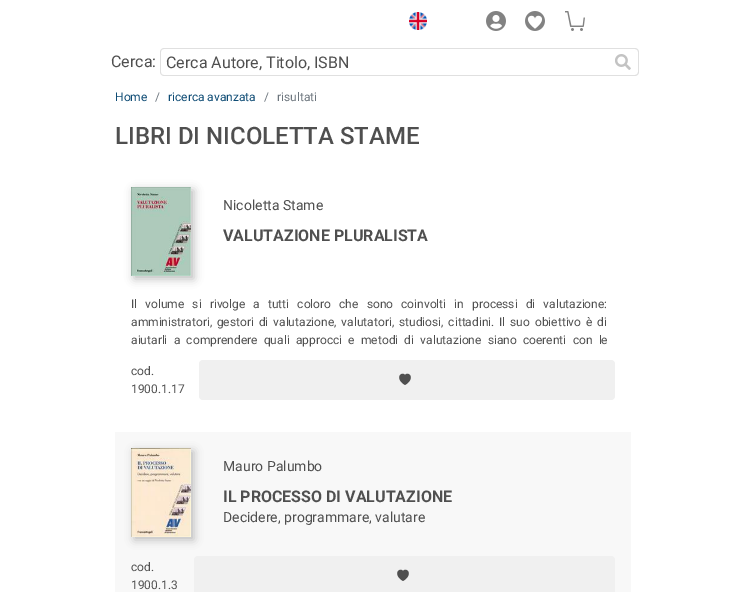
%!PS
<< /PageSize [746 592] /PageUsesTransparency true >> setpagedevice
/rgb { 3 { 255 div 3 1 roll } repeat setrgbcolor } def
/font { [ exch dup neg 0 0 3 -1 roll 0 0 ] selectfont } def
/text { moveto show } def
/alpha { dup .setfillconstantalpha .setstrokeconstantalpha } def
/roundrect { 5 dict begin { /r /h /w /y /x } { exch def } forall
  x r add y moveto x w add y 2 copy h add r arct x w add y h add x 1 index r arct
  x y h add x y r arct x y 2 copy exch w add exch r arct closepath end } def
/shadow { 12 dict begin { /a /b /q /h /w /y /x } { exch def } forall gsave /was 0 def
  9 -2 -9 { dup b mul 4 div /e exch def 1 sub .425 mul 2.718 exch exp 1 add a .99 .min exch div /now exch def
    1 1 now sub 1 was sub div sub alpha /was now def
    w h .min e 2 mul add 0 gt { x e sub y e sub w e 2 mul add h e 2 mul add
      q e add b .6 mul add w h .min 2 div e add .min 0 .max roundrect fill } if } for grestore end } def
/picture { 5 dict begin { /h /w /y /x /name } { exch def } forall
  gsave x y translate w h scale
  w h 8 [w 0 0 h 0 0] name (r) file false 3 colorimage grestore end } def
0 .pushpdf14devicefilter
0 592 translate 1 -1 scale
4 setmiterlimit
255 255 255 rgb
0 0 746 592 rectfill
(img_01.rgb) 409 12 18 18 picture
(img_02.rgb) 486 11 20 20 picture
(img_03.rgb) 525 11 20 20 picture
(img_04.rgb) 565 11 20 20 picture
224 224 224 rgb
164 48 moveto 443 0 rlineto 0 28 rlineto -443 0 rlineto -2 0 -4 -2 -4 -4 rcurveto 0 -20 rlineto 0 -2 2 -4 4 -4 rcurveto closepath 164 49 moveto 443 0 rlineto 0 26 rlineto -443 0 rlineto -2 0 -3 -1 -3 -3 rcurveto 0 -20 rlineto 0 -2 1 -3 3 -3 rcurveto closepath eofill
607 48 moveto 28 0 rlineto 2 0 4 2 4 4 rcurveto 0 20 rlineto 0 2 -2 4 -4 4 rcurveto -28 0 rlineto closepath 607 49 moveto 28 0 rlineto 1.5 0 3 1.5 3 3 rcurveto 0 20 rlineto 0 1.5 -1.5 3 -3 3 rcurveto -28 0 rlineto closepath eofill
(img_05.rgb) 615 54 16 16 picture
189 189 189 rgb
134 190 60 89 0 4.5 1 shadow
(img_06.rgb) 131 187 60 89 picture
240 240 240 rgb
199 360 416 40 4 roundrect fill
79 79 79 rgb
405 375 moveto 3.5 -4 11 3 0 10 rcurveto -11 -7 -3.5 -14 0 -10 rcurveto closepath fill
248 248 248 rgb
115 432 516 160 rectfill
189 189 189 rgb
134 451 60 89 0 4.5 1 shadow
(img_07.rgb) 131 448 60 89 picture
240 240 240 rgb
194 556 421 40 4 roundrect fill
79 79 79 rgb
403 571 moveto 3.5 -4 11 3 0 10 rcurveto -11 -7 -3.5 -14 0 -10 rcurveto closepath fill
/Roboto-Regular 16 font
(Cerca:) 111 67 text
(Cerca Autore, Titolo, ISBN) 166 68 text
/Roboto-Regular 12 font
15 76 117 rgb
(Home) 115 101 text
108 117 125 rgb
(/) 155 101 text
15 76 117 rgb
(ricerca avanzata) 168 101 text
108 117 125 rgb
(/) 264 101 text
(risultati) 277 101 text
/Roboto-Medium 24 font
79 79 79 rgb
(LIBRI DI NICOLETTA STAME) 115 144 text
/Roboto-Regular 14 font
(Nicoletta Stame) 223 210 text
/Roboto-Bold 16 font
(VALUTAZIONE PLURALISTA) 223 241 text
/Roboto-Regular 12 font
131 308 moveto 5.1 0 32 (Il volume si rivolge a tutti coloro che sono coinvolti in processi di valutazione:) widthshow
131 326 moveto 1.9 0 32 (amministratori, gestori di valutazione, valutatori, studiosi, cittadini. Il suo obiettivo è di) widthshow
131 344 moveto 3.25 0 32 (aiutarli a comprendere quali approcci e metodi di valutazione siano coerenti con le) widthshow
(cod.) 131 375 text
(1900.1.17) 131 393 text
/Roboto-Regular 14 font
(Mauro Palumbo) 223 471 text
/Roboto-Bold 16 font
(IL PROCESSO DI VALUTAZIONE) 223 502 text
/Roboto-Regular 14 font
(Decidere, programmare, valutare) 223 522 text
/Roboto-Regular 12 font
(cod.) 131 571 text
(1900.1.3) 131 589 text
.poppdf14devicefilter showpage
